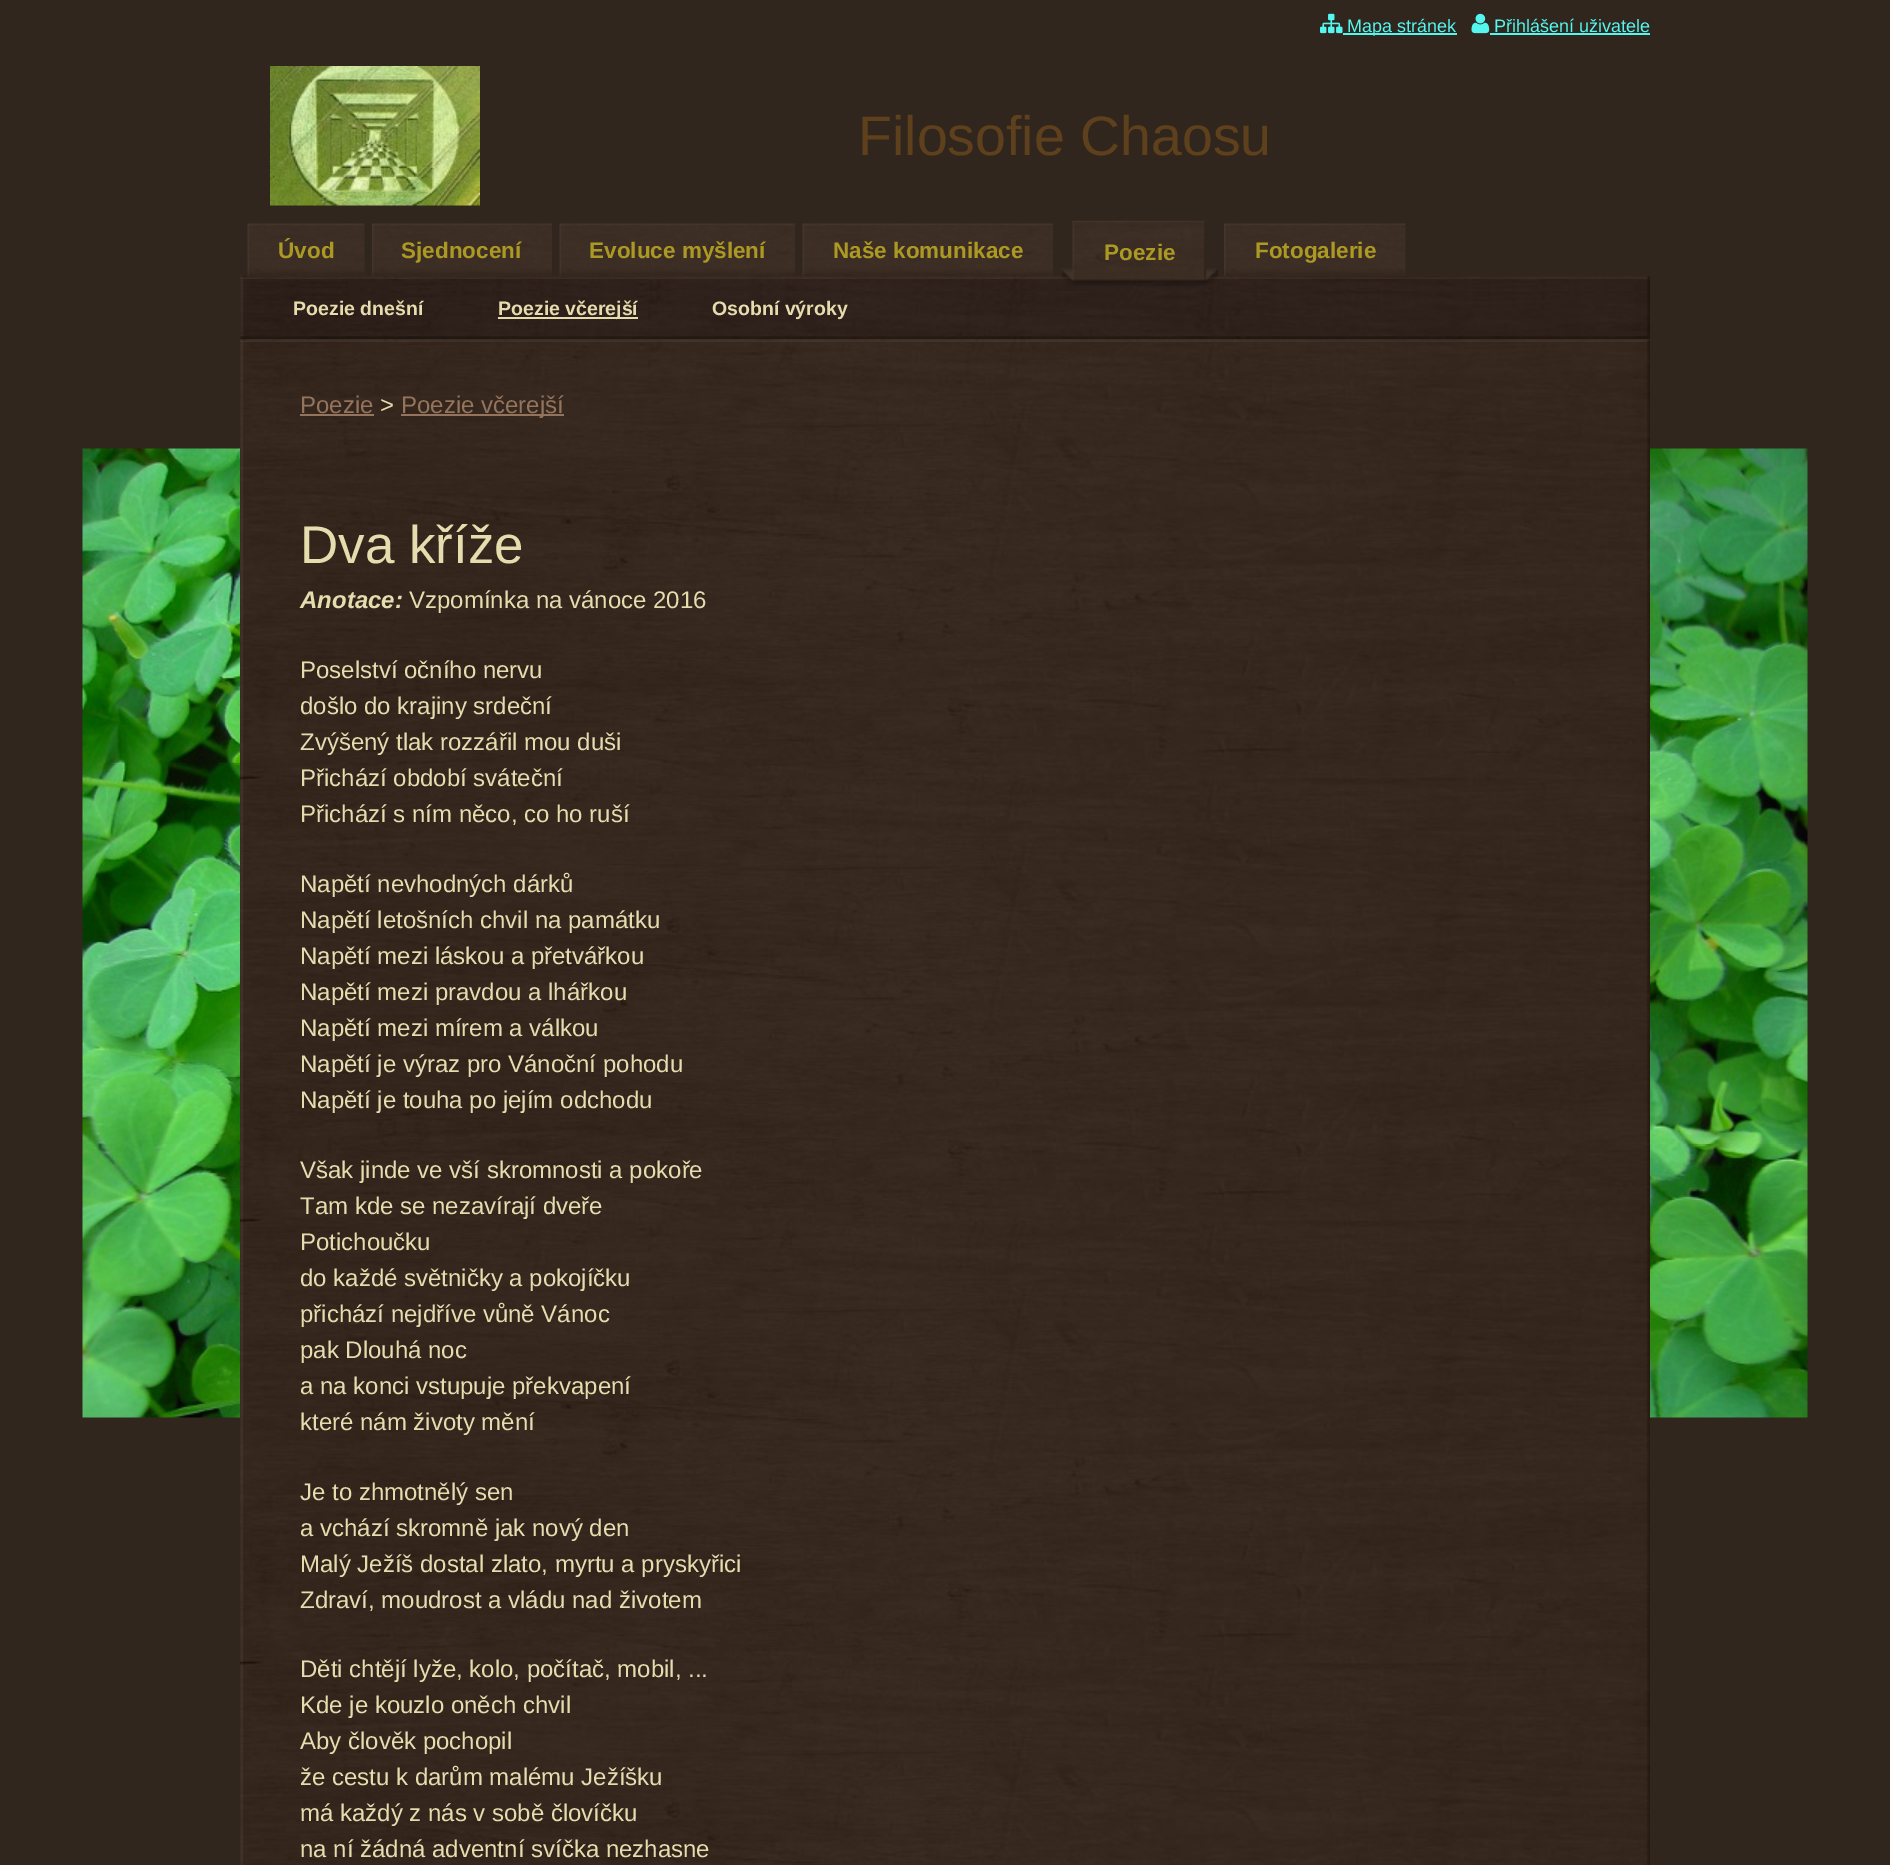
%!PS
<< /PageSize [1890 1865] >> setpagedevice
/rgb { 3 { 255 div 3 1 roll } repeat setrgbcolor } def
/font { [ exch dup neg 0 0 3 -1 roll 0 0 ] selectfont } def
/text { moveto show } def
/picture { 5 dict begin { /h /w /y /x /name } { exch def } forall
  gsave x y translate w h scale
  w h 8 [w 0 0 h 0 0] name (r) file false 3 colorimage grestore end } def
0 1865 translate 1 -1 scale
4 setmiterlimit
48 38 29 rgb
0 0 1890 1865 rectfill
(img_01.rgb) 82 448 1726 970 picture
(img_02.rgb) 1320 13 23 21 picture
84 247 239 rgb
1343 33 114 2 rectfill
(img_03.rgb) 1471 13 19 21 picture
1490 33 160 2 rectfill
(img_04.rgb) 270 66 210 140 picture
(img_05.rgb) 240 276 1410 3 picture
(img_06.rgb) 240 279 1410 12 picture
(img_07.rgb) 247 223 118 53 picture
(img_08.rgb) 372 223 180 53 picture
(img_09.rgb) 559 223 236 53 picture
(img_10.rgb) 802 223 251 53 picture
(img_11.rgb) 1061 220 144 66 picture
(img_12.rgb) 1204 221 14 64 picture
(img_13.rgb) 1224 223 182 53 picture
(img_14.rgb) 240 291 1410 45 picture
230 221 175 rgb
498 317 140 2 rectfill
(img_15.rgb) 240 336 1410 3 picture
(img_16.rgb) 240 342 1410 1523 picture
(img_17.rgb) 240 339 1410 3 picture
148 116 92 rgb
300 414 74 2 rectfill
401 414 163 2 rectfill
/LiberationSans-Regular 18 font
84 247 239 rgb
(Mapa stránek) 1347 32 text
(Přihlášení uživatele) 1494 32 text
/LiberationSans-Regular 55.5 font
94 64 28 rgb
(Filosofie Chaosu) 858 155 text
/LiberationSans-Bold 22.5 font
171 153 36 rgb
(Úvod) 278 258 text
(Sjednocení) 401 258 text
(Evoluce myšlení) 589 258 text
(Naše komunikace) 833 258 text
(Poezie) 1104 260 text
(Fotogalerie) 1255 258 text
/LiberationSans-Bold 19.5 font
230 221 175 rgb
(Poezie dnešní) 293 315 text
(Poezie včerejší) 498 315 text
(Osobní výroky) 712 315 text
/LiberationSans-Regular 24 font
148 116 92 rgb
(Poezie) 300 413 text
230 221 175 rgb
(>) 380 413 text
148 116 92 rgb
(Poezie včerejší) 401 413 text
/LiberationSans-Regular 53 font
230 221 175 rgb
(Dva kříže) 300 563 text
/LiberationSans-BoldItalic 24 font
(Anotace:) 300 608 text
/LiberationSans-Regular 24 font
(Vzpomínka na vánoce 2016) 409 608 text
(Poselství očního nervu) 300 678 text
(došlo do krajiny srdeční) 300 714 text
(Zvýšený tlak rozzářil mou duši) 300 750 text
(Přichází období sváteční) 300 786 text
(Přichází s ním něco, co ho ruší) 300 822 text
(Napětí nevhodných dárků) 300 892 text
(Napětí letošních chvil na památku) 300 928 text
(Napětí mezi láskou a přetvářkou) 300 964 text
(Napětí mezi pravdou a lhářkou) 300 1000 text
(Napětí mezi mírem a válkou) 300 1036 text
(Napětí je výraz pro Vánoční pohodu) 300 1072 text
(Napětí je touha po jejím odchodu) 300 1108 text
(Však jinde ve vší skromnosti a pokoře) 300 1178 text
(Tam kde se nezavírají dveře) 300 1214 text
(Potichoučku) 300 1250 text
(do každé světničky a pokojíčku) 300 1286 text
(přichází nejdříve vůně Vánoc) 300 1322 text
(pak Dlouhá noc) 300 1358 text
(a na konci vstupuje překvapení) 300 1394 text
(které nám životy mění) 300 1430 text
(Je to zhmotnělý sen) 300 1500 text
(a vchází skromně jak nový den) 300 1536 text
(Malý Ježíš dostal zlato, myrtu a pryskyřici) 300 1572 text
(Zdraví, moudrost a vládu nad životem) 300 1608 text
(Děti chtějí lyže, kolo, počítač, mobil, ...) 300 1677 text
(Kde je kouzlo oněch chvil) 300 1713 text
(Aby člověk pochopil) 300 1749 text
(že cestu k darům malému Ježíšku) 300 1785 text
(má každý z nás v sobě človíčku) 300 1821 text
(na ní žádná adventní svíčka nezhasne) 300 1857 text
showpage
